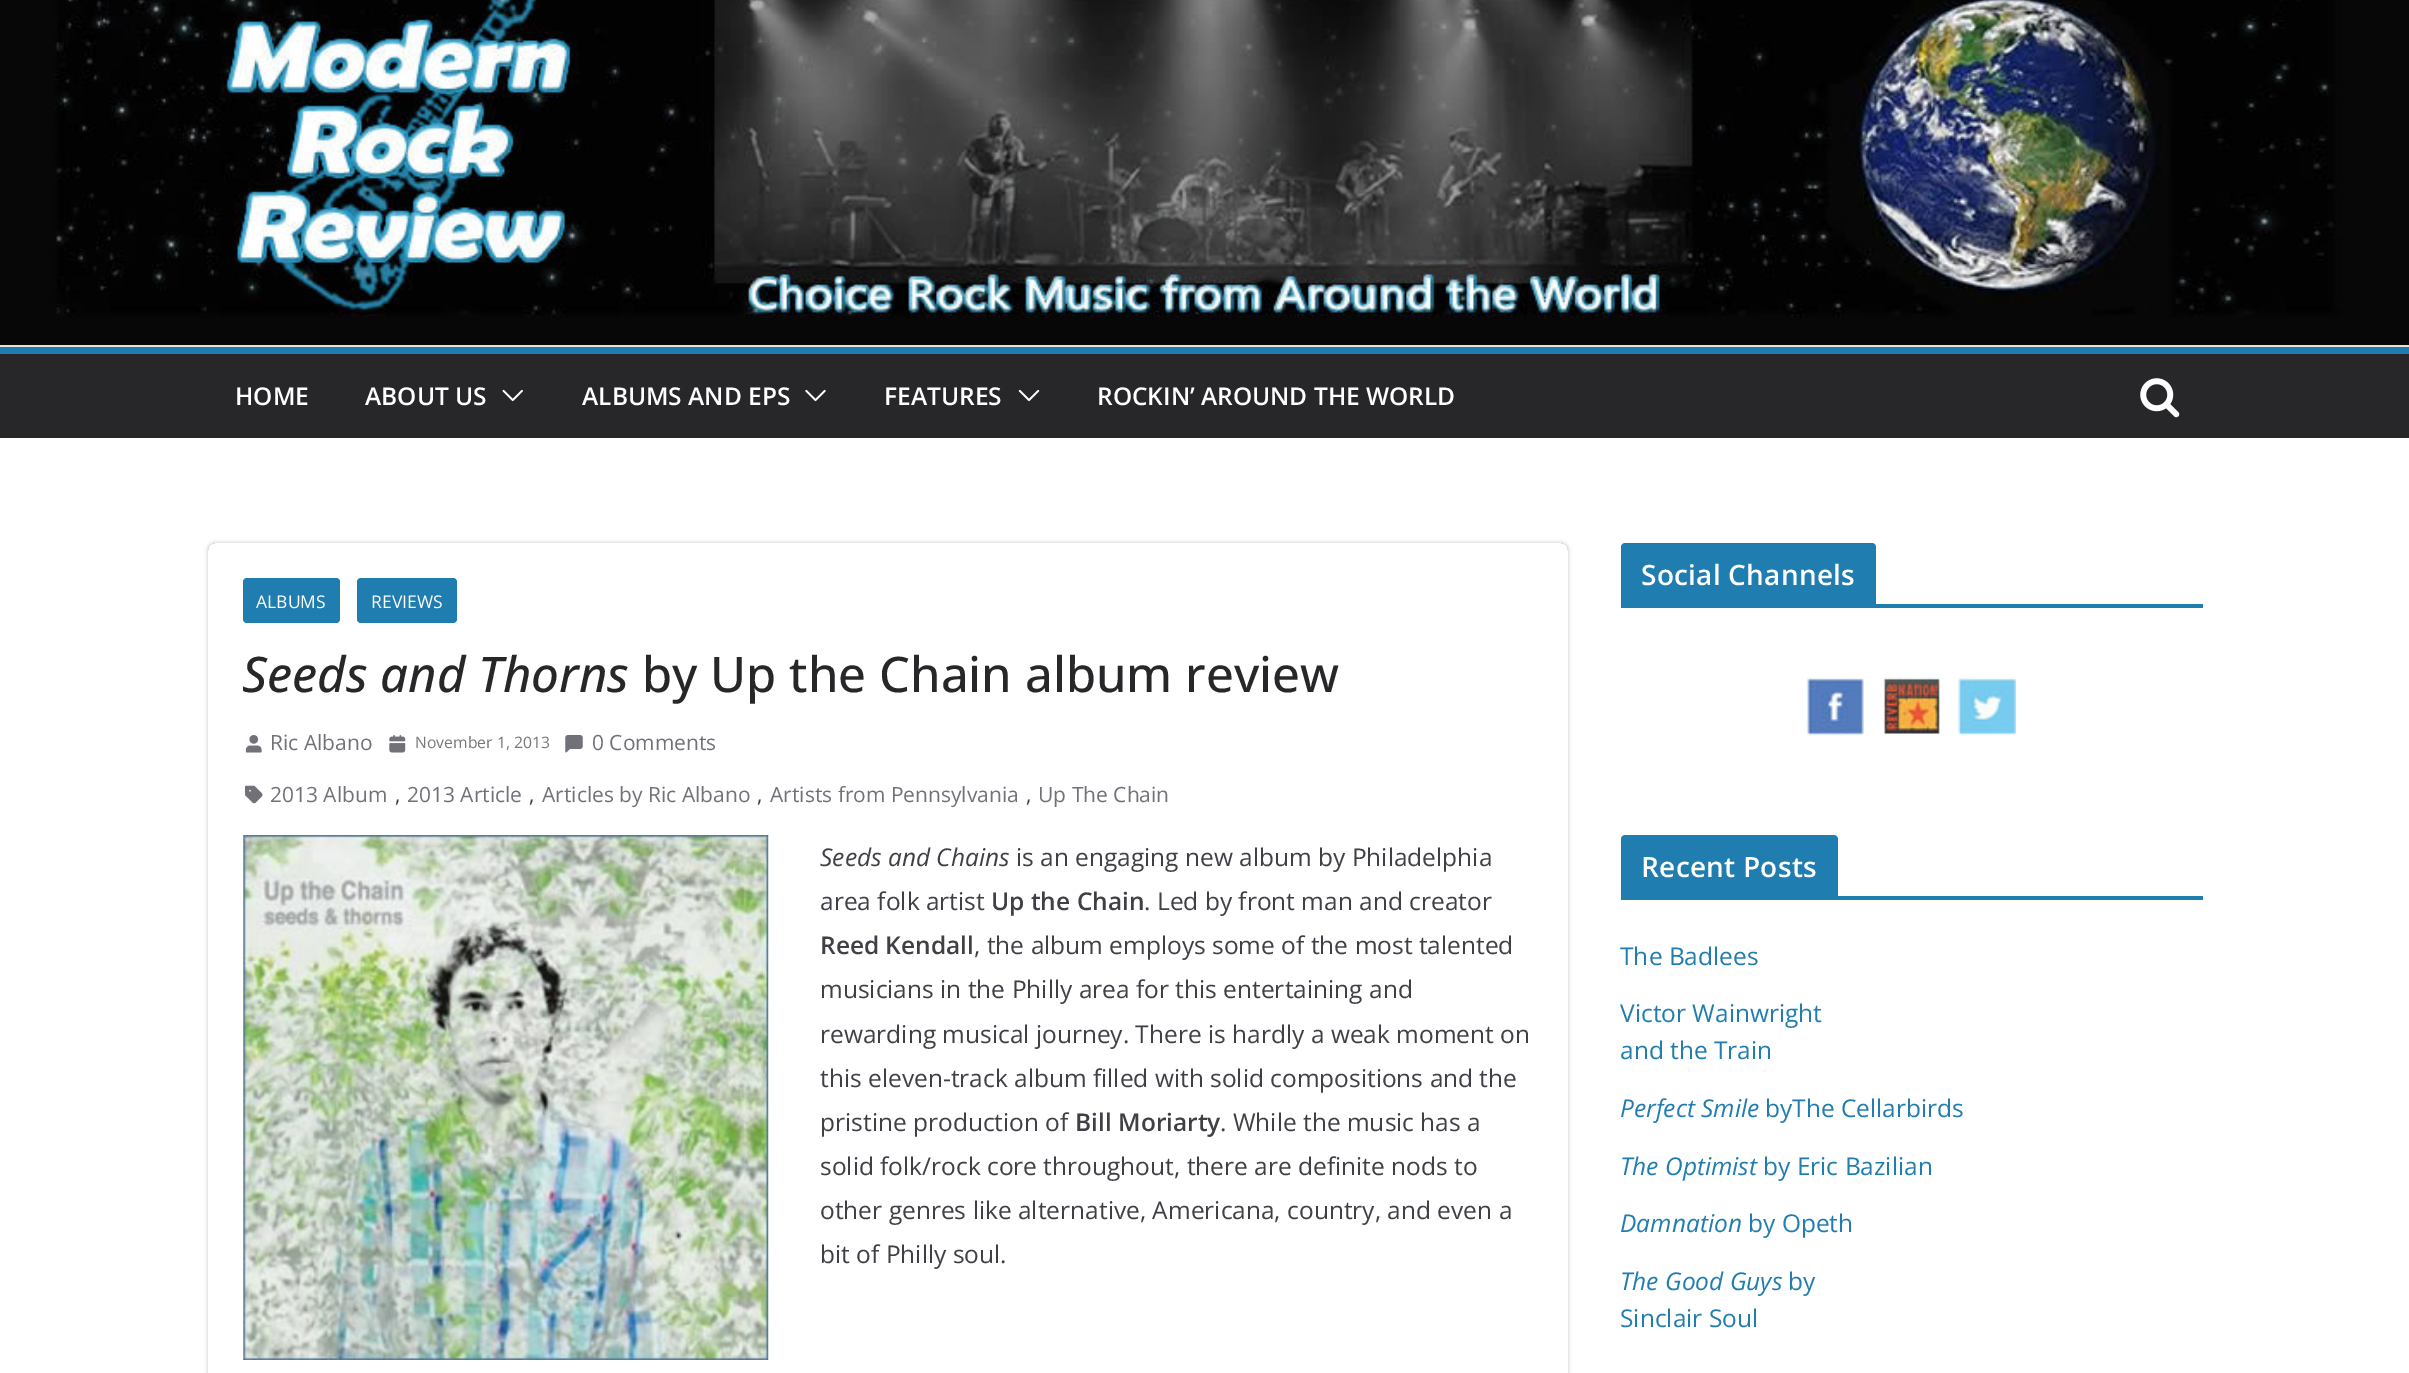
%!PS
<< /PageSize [2409 1373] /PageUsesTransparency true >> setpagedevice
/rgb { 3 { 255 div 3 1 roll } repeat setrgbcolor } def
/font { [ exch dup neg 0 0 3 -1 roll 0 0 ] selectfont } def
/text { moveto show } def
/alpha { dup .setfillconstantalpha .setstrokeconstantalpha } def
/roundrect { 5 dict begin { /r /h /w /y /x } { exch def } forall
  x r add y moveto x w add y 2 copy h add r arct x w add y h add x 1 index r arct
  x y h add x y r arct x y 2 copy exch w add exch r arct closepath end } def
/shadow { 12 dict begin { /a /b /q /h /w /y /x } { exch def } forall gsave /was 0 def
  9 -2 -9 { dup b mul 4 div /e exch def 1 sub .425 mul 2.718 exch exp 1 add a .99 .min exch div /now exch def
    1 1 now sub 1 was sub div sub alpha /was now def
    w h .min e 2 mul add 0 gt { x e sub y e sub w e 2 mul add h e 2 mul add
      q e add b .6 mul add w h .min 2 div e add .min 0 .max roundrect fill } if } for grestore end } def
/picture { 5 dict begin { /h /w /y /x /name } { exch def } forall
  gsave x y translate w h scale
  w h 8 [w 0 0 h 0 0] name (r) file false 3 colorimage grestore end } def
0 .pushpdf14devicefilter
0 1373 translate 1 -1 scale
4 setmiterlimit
255 255 255 rgb
0 0 2409 1373 rectfill
(img_01.rgb) 0 0 2409 345 picture
228 228 231 rgb
0 345 2409 2 rectfill
39 39 42 rgb
0 354 2409 84 rectfill
32 125 175 rgb
0 347 2409 7 rectfill
(img_02.rgb) 502 389 21 13 picture
(img_03.rgb) 805 389 21 13 picture
(img_04.rgb) 1018 389 22 13 picture
(img_05.rgb) 2140 378 40 40 picture
gsave
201 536 moveto 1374 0 rlineto 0 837 rlineto -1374 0 rlineto closepath 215 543 moveto 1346 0 rlineto 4 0 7 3 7 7 rcurveto 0 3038 rlineto 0 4 -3 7 -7 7 rcurveto -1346 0 rlineto -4 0 -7 -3 -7 -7 rcurveto 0 -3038 rlineto 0 -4 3 -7 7 -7 rcurveto closepath eoclip newpath
0 0 0 rgb
208 543 1360 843 7 2 0.24 shadow
grestore
243 578 97 45 4 roundrect fill
357 578 100 45 4 roundrect fill
(img_06.rgb) 245 735 17 18 picture
(img_07.rgb) 389 735 17 18 picture
(img_08.rgb) 565 735 18 18 picture
(img_09.rgb) 245 785 18 19 picture
(img_10.rgb) 243 835 526 525 picture
1621 604 582 4 rectfill
1625 543 moveto 247 0 rlineto 2 0 4 2 4 4 rcurveto 0 57 rlineto -255 0 rlineto 0 -57 rlineto 0 -2 2 -4 4 -4 rcurveto closepath fill
(img_11.rgb) 1806 677 58 59 picture
(img_12.rgb) 1883 677 57 57 picture
(img_13.rgb) 1958 677 58 59 picture
1621 896 582 4 rectfill
1625 835 moveto 209 0 rlineto 2 0 4 2 4 4 rcurveto 0 57 rlineto -217 0 rlineto 0 -57 rlineto 0 -2 2 -4 4 -4 rcurveto closepath fill
/OpenSans-SemiBold 24.5 font
255 255 255 rgb
(HOME) 235 405 text
(ABOUT US) 365 405 text
(ALBUMS AND EPS) 582 405 text
(FEATURES) 884 405 text
(ROCKIN’ AROUND THE WORLD) 1097 405 text
/OpenSans-Regular 17.5 font
(ALBUMS) 256 608 text
(REVIEWS) 371 608 text
/OpenSans-MediumItalic 49 font
39 39 42 rgb
(Seeds and Thorns) 242 692 text
/OpenSans-Medium 49 font
(by Up the Chain album review) 642 692 text
/OpenSans-Regular 21 font
113 113 122 rgb
(Ric Albano) 270 750 text
/OpenSans-Regular 15.75 font
119 119 119 rgb
(November 1, 2013) 415 748 text
/OpenSans-Regular 21 font
113 113 122 rgb
(0 Comments) 592 750 text
(2013 Album) 270 802 text
63 63 70 rgb
(,) 395 802 text
113 113 122 rgb
(2013 Article) 407 802 text
63 63 70 rgb
(,) 529 802 text
113 113 122 rgb
(Articles by Ric Albano) 542 802 text
63 63 70 rgb
(,) 757 802 text
113 113 122 rgb
(Artists from Pennsylvania) 770 802 text
63 63 70 rgb
(,) 1026 802 text
113 113 122 rgb
(Up The Chain) 1038 802 text
/OpenSans-Italic 24.5 font
63 63 70 rgb
(Seeds and Chains) 820 866 text
/OpenSans-Regular 24.5 font
(is an engaging new album by Philadelphia) 1016 866 text
(area folk artist) 820 910 text
/OpenSans-SemiBold 24.5 font
(Up the Chain) 991 910 text
/OpenSans-Regular 24.5 font
(. Led by front man and creator) 1144 910 text
/OpenSans-SemiBold 24.5 font
(Reed Kendall) 820 954 text
/OpenSans-Regular 24.5 font
(, the album employs some of the most talented) 974 954 text
(musicians in the Philly area for this entertaining and) 820 998 text
(rewarding musical journey. There is hardly a weak moment on) 820 1043 text
(this eleven-track album filled with solid compositions and the) 820 1087 text
(pristine production of) 820 1131 text
/OpenSans-SemiBold 24.5 font
(Bill Moriarty) 1075 1131 text
/OpenSans-Regular 24.5 font
(. While the music has a) 1220 1131 text
(solid folk/rock core throughout, there are definite nods to) 820 1175 text
(other genres like alternative, Americana, country, and even a) 820 1219 text
(bit of Philly soul.) 820 1263 text
/OpenSans-SemiBold 28 font
255 255 255 rgb
1641 585 moveto 0.25 0 (Social Channels) ashow
1641 877 moveto 0.25 0 (Recent Posts) ashow
/OpenSans-Regular 24.5 font
32 125 175 rgb
(The Badlees) 1620 965 text
(Victor Wainwright) 1620 1022 text
(and the Train) 1620 1059 text
/OpenSans-Italic 24.5 font
(Perfect Smile) 1620 1117 text
/OpenSans-Regular 24.5 font
(byThe Cellarbirds) 1765 1117 text
/OpenSans-Italic 24.5 font
(The Optimist) 1620 1175 text
/OpenSans-Regular 24.5 font
(by Eric Bazilian) 1763 1175 text
/OpenSans-Italic 24.5 font
(Damnation) 1620 1232 text
/OpenSans-Regular 24.5 font
(by Opeth) 1748 1232 text
/OpenSans-Italic 24.5 font
(The Good Guys) 1620 1290 text
/OpenSans-Regular 24.5 font
(by) 1788 1290 text
(Sinclair Soul) 1620 1327 text
.poppdf14devicefilter showpage
